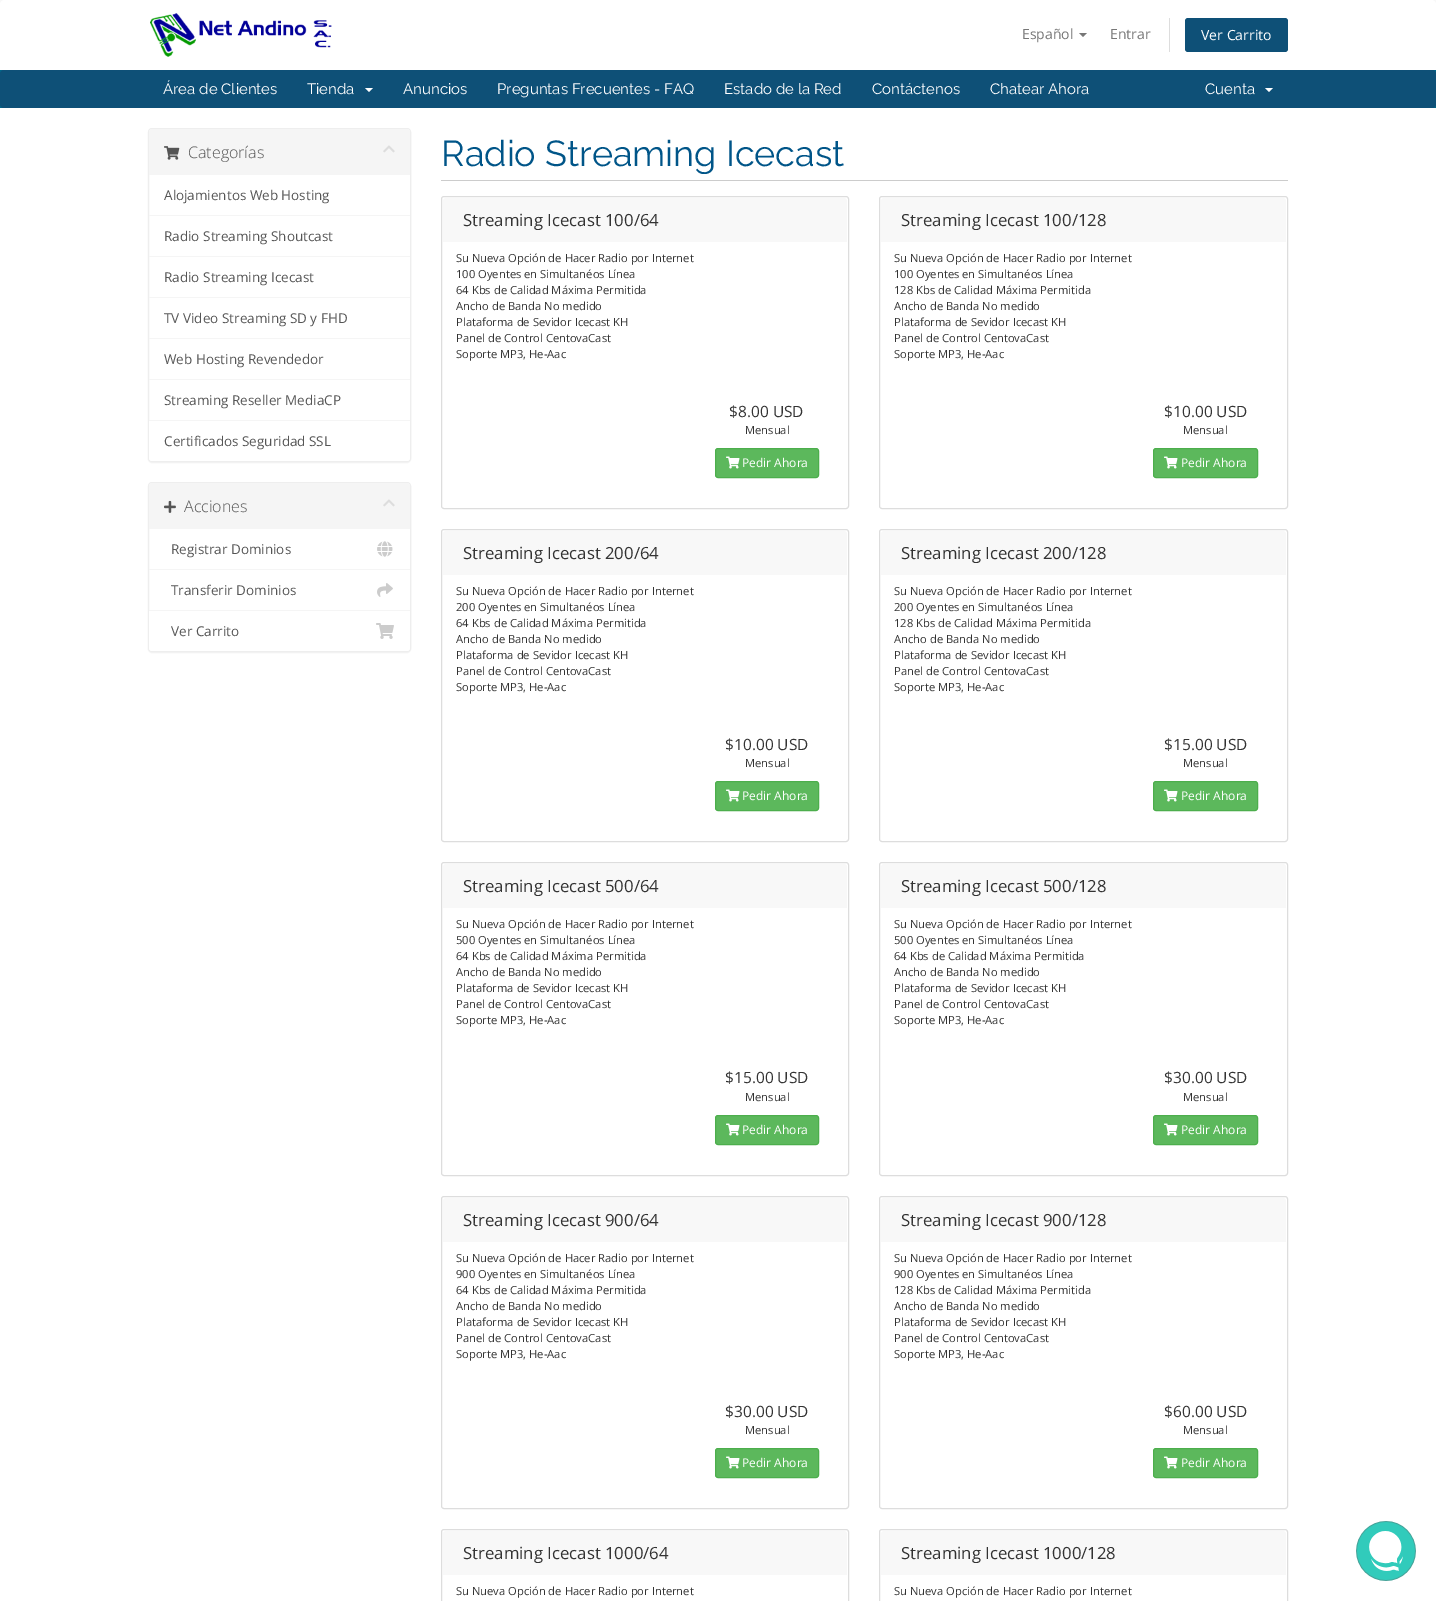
%!PS
<< /PageSize [1436 1601] /PageUsesTransparency true >> setpagedevice
/rgb { 3 { 255 div 3 1 roll } repeat setrgbcolor } def
/font { [ exch dup neg 0 0 3 -1 roll 0 0 ] selectfont } def
/text { moveto show } def
/alpha { dup .setfillconstantalpha .setstrokeconstantalpha } def
/roundrect { 5 dict begin { /r /h /w /y /x } { exch def } forall
  x r add y moveto x w add y 2 copy h add r arct x w add y h add x 1 index r arct
  x y h add x y r arct x y 2 copy exch w add exch r arct closepath end } def
/shadow { 12 dict begin { /a /b /q /h /w /y /x } { exch def } forall gsave /was 0 def
  9 -2 -9 { dup b mul 4 div /e exch def 1 sub .425 mul 2.718 exch exp 1 add a .99 .min exch div /now exch def
    1 1 now sub 1 was sub div sub alpha /was now def
    w h .min e 2 mul add 0 gt { x e sub y e sub w e 2 mul add h e 2 mul add
      q e add b .6 mul add w h .min 2 div e add .min 0 .max roundrect fill } if } for grestore end } def
/picture { 5 dict begin { /h /w /y /x /name } { exch def } forall
  gsave x y translate w h scale
  w h 8 [w 0 0 h 0 0] name (r) file false 3 colorimage grestore end } def
0 .pushpdf14devicefilter
0 1601 translate 1 -1 scale
4 setmiterlimit
248 248 248 rgb
0 0 1436 1601 rectfill
255 255 255 rgb
5 0 moveto 1426 0 rlineto 3 0 5 2 5 5 rcurveto 0 65 rlineto -1436 0 rlineto 0 -65 rlineto 0 -3 2 -5 5 -5 rcurveto closepath fill
(img_01.rgb) 150 13 182 44 picture
119 119 119 rgb
1079 33 moveto 8 0 rlineto -4 4 rlineto closepath fill
221 221 221 rgb
1169 18 1 34 rectfill
14 80 119 rgb
1185 18 103 34 3 roundrect fill
0 102 135 rgb
0 70 1436 38 rectfill
14 80 119 rgb
0 70 1436 38 4 roundrect fill
255 255 255 rgb
365 88 moveto 8 0 rlineto -4 4 rlineto closepath fill
1265 88 moveto 8 0 rlineto -4 4 rlineto closepath fill
0 108 1436 1493 rectfill
0 0 0 rgb
148 129 263 334 4 0.5 0.05 shadow
255 255 255 rgb
148.5 128.5 262 333 3.5 roundrect gsave fill grestore
238 238 238 rgb
stroke
245 245 245 rgb
152 129 moveto 255 0 rlineto 1.5 0 3 1.5 3 3 rcurveto 0 43 rlineto -261 0 rlineto 0 -43 rlineto 0 -1.5 1.5 -3 3 -3 rcurveto closepath fill
(img_02.rgb) 164 146 16 14 picture
(img_03.rgb) 383 145 12 8 picture
149 215 261 1 rectfill
149 256 261 1 rectfill
149 297 261 1 rectfill
149 338 261 1 rectfill
149 379 261 1 rectfill
149 420 261 1 rectfill
255 255 255 rgb
149 421 moveto 261 0 rlineto 0 37 rlineto 0 1.5 -1.5 3 -3 3 rcurveto -255 0 rlineto -1.5 0 -3 -1.5 -3 -3 rcurveto closepath fill
0 0 0 rgb
148 483 263 170 4 0.5 0.05 shadow
255 255 255 rgb
148.5 482.5 262 169 3.5 roundrect gsave fill grestore
238 238 238 rgb
stroke
245 245 245 rgb
152 483 moveto 255 0 rlineto 1.5 0 3 1.5 3 3 rcurveto 0 43 rlineto -261 0 rlineto 0 -43 rlineto 0 -1.5 1.5 -3 3 -3 rcurveto closepath fill
(img_04.rgb) 164 500 12 13 picture
(img_03.rgb) 383 499 12 8 picture
149 569 261 1 rectfill
(img_05.rgb) 377 541 16 16 picture
149 610 261 1 rectfill
(img_06.rgb) 377 583 16 14 picture
255 255 255 rgb
149 611 moveto 261 0 rlineto 0 37 rlineto 0 1.5 -1.5 3 -3 3 rcurveto -255 0 rlineto -1.5 0 -3 -1.5 -3 -3 rcurveto closepath fill
(img_07.rgb) 376 623 18 16 picture
204 204 204 rgb
441 180 847 1 rectfill
221 221 221 rgb
441.5 196.5 407 312 2.5 roundrect stroke
248 248 248 rgb
446 198 moveto 398 0 rlineto 1.5 0 3 1.5 3 3 rcurveto 0 41 rlineto -404 0 rlineto 0 -41 rlineto 0 -1.5 1.5 -3 3 -3 rcurveto closepath fill
92 184 92 rgb
715.5 448.5 103 29 2.5 roundrect gsave fill grestore
76 174 76 rgb
stroke
(img_08.rgb) 726 456 14 13 picture
221 221 221 rgb
879.5 196.5 408 312 2.5 roundrect stroke
248 248 248 rgb
884 198 moveto 399 0 rlineto 1.5 0 3 1.5 3 3 rcurveto 0 41 rlineto -405 0 rlineto 0 -41 rlineto 0 -1.5 1.5 -3 3 -3 rcurveto closepath fill
92 184 92 rgb
1153.5 448.5 104 29 2.5 roundrect gsave fill grestore
76 174 76 rgb
stroke
(img_08.rgb) 1164 456 14 13 picture
221 221 221 rgb
441.5 529.5 407 312 2.5 roundrect stroke
248 248 248 rgb
446 531 moveto 398 0 rlineto 1.5 0 3 1.5 3 3 rcurveto 0 41 rlineto -404 0 rlineto 0 -41 rlineto 0 -1.5 1.5 -3 3 -3 rcurveto closepath fill
92 184 92 rgb
715.5 781.5 103 29 2.5 roundrect gsave fill grestore
76 174 76 rgb
stroke
(img_08.rgb) 726 789 14 13 picture
221 221 221 rgb
879.5 529.5 408 312 2.5 roundrect stroke
248 248 248 rgb
884 531 moveto 399 0 rlineto 1.5 0 3 1.5 3 3 rcurveto 0 41 rlineto -405 0 rlineto 0 -41 rlineto 0 -1.5 1.5 -3 3 -3 rcurveto closepath fill
92 184 92 rgb
1153.5 781.5 104 29 2.5 roundrect gsave fill grestore
76 174 76 rgb
stroke
(img_08.rgb) 1164 789 14 13 picture
221 221 221 rgb
441.5 862.5 407 313 2.5 roundrect stroke
248 248 248 rgb
446 864 moveto 398 0 rlineto 1.5 0 3 1.5 3 3 rcurveto 0 41 rlineto -404 0 rlineto 0 -41 rlineto 0 -1.5 1.5 -3 3 -3 rcurveto closepath fill
92 184 92 rgb
715.5 1115.5 103 29 2.5 roundrect gsave fill grestore
76 174 76 rgb
stroke
(img_08.rgb) 726 1123 14 13 picture
221 221 221 rgb
879.5 862.5 408 313 2.5 roundrect stroke
248 248 248 rgb
884 864 moveto 399 0 rlineto 1.5 0 3 1.5 3 3 rcurveto 0 41 rlineto -405 0 rlineto 0 -41 rlineto 0 -1.5 1.5 -3 3 -3 rcurveto closepath fill
92 184 92 rgb
1153.5 1115.5 104 29 2.5 roundrect gsave fill grestore
76 174 76 rgb
stroke
(img_08.rgb) 1164 1123 14 13 picture
221 221 221 rgb
441.5 1196.5 407 312 2.5 roundrect stroke
248 248 248 rgb
446 1198 moveto 398 0 rlineto 1.5 0 3 1.5 3 3 rcurveto 0 41 rlineto -404 0 rlineto 0 -41 rlineto 0 -1.5 1.5 -3 3 -3 rcurveto closepath fill
92 184 92 rgb
715.5 1448.5 103 29 2.5 roundrect gsave fill grestore
76 174 76 rgb
stroke
(img_08.rgb) 726 1456 14 13 picture
221 221 221 rgb
879.5 1196.5 408 312 2.5 roundrect stroke
248 248 248 rgb
884 1198 moveto 399 0 rlineto 1.5 0 3 1.5 3 3 rcurveto 0 41 rlineto -405 0 rlineto 0 -41 rlineto 0 -1.5 1.5 -3 3 -3 rcurveto closepath fill
92 184 92 rgb
1153.5 1448.5 104 29 2.5 roundrect gsave fill grestore
76 174 76 rgb
stroke
(img_08.rgb) 1164 1456 14 13 picture
221 221 221 rgb
441.5 1529.5 407 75 2.5 roundrect stroke
248 248 248 rgb
446 1531 moveto 398 0 rlineto 1.5 0 3 1.5 3 3 rcurveto 0 41 rlineto -404 0 rlineto 0 -41 rlineto 0 -1.5 1.5 -3 3 -3 rcurveto closepath fill
221 221 221 rgb
879.5 1529.5 408 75 2.5 roundrect stroke
248 248 248 rgb
884 1531 moveto 399 0 rlineto 1.5 0 3 1.5 3 3 rcurveto 0 41 rlineto -405 0 rlineto 0 -41 rlineto 0 -1.5 1.5 -3 3 -3 rcurveto closepath fill
(img_09.rgb) 1356 1521 60 60 picture
/OpenSans-Regular 14 font
119 119 119 rgb
(Español) 1022 39 text
(Entrar) 1110 39 text
255 255 255 rgb
(Ver Carrito) 1201 40 text
/Raleway-Regular 15 font
(Área de Clientes) 163 94 text
(Tienda) 307 94 text
(Anuncios) 403 94 text
(Preguntas Frecuentes - FAQ) 497 94 text
(Estado de la Red) 724 94 text
(Contáctenos) 872 94 text
(Chatear Ahora) 990 94 text
(Cuenta) 1205 94 text
/OpenSans-Light 16 font
85 85 85 rgb
(Categorías) 188 158 text
/OpenSans-Regular 13.5 font
(Alojamientos Web Hosting) 164 200 text
(Radio Streaming Shoutcast) 164 241 text
(Radio Streaming Icecast) 164 282 text
(TV Video Streaming SD y FHD) 164 323 text
(Web Hosting Revendedor) 164 364 text
(Streaming Reseller MediaCP) 164 405 text
(Certificados Seguridad SSL) 164 446 text
/OpenSans-Light 16 font
(Acciones) 184 512 text
/OpenSans-Regular 13.5 font
(Registrar Dominios) 171 554 text
(Transferir Dominios) 171 595 text
(Ver Carrito) 171 636 text
/Raleway-Regular 36 font
0 85 136 rgb
(Radio Streaming Icecast) 441 166 text
/OpenSans-Regular 16.75 font
51 51 51 rgb
(Streaming Icecast 100/64) 463 226 text
/OpenSans-Regular 11.2 font
(Su Nueva Opción de Hacer Radio por Internet) 456 262 text
(100 Oyentes en Simultanéos Línea) 456 278 text
(64 Kbs de Calidad Máxima Permitida) 456 294 text
(Ancho de Banda No medido) 456 310 text
(Plataforma de Sevidor Icecast KH) 456 326 text
(Panel de Control CentovaCast) 456 342 text
(Soporte MP3, He-Aac) 456 358 text
/OpenSans-Regular 15.5 font
($8.00 USD) 729 417 text
/OpenSans-Regular 11.2 font
(Mensual) 745 434 text
/OpenSans-Regular 12 font
255 255 255 rgb
(Pedir Ahora) 742 467 text
/OpenSans-Regular 16.75 font
51 51 51 rgb
(Streaming Icecast 100/128) 901 226 text
/OpenSans-Regular 11.2 font
(Su Nueva Opción de Hacer Radio por Internet) 894 262 text
(100 Oyentes en Simultanéos Línea) 894 278 text
(128 Kbs de Calidad Máxima Permitida) 894 294 text
(Ancho de Banda No medido) 894 310 text
(Plataforma de Sevidor Icecast KH) 894 326 text
(Panel de Control CentovaCast) 894 342 text
(Soporte MP3, He-Aac) 894 358 text
/OpenSans-Regular 15.5 font
($10.00 USD) 1164 417 text
/OpenSans-Regular 11.2 font
(Mensual) 1183 434 text
/OpenSans-Regular 12 font
255 255 255 rgb
(Pedir Ahora) 1181 467 text
/OpenSans-Regular 16.75 font
51 51 51 rgb
(Streaming Icecast 200/64) 463 559 text
/OpenSans-Regular 11.2 font
(Su Nueva Opción de Hacer Radio por Internet) 456 595 text
(200 Oyentes en Simultanéos Línea) 456 611 text
(64 Kbs de Calidad Máxima Permitida) 456 627 text
(Ancho de Banda No medido) 456 643 text
(Plataforma de Sevidor Icecast KH) 456 659 text
(Panel de Control CentovaCast) 456 675 text
(Soporte MP3, He-Aac) 456 691 text
/OpenSans-Regular 15.5 font
($10.00 USD) 725 750 text
/OpenSans-Regular 11.2 font
(Mensual) 745 767 text
/OpenSans-Regular 12 font
255 255 255 rgb
(Pedir Ahora) 742 800 text
/OpenSans-Regular 16.75 font
51 51 51 rgb
(Streaming Icecast 200/128) 901 559 text
/OpenSans-Regular 11.2 font
(Su Nueva Opción de Hacer Radio por Internet) 894 595 text
(200 Oyentes en Simultanéos Línea) 894 611 text
(128 Kbs de Calidad Máxima Permitida) 894 627 text
(Ancho de Banda No medido) 894 643 text
(Plataforma de Sevidor Icecast KH) 894 659 text
(Panel de Control CentovaCast) 894 675 text
(Soporte MP3, He-Aac) 894 691 text
/OpenSans-Regular 15.5 font
($15.00 USD) 1164 750 text
/OpenSans-Regular 11.2 font
(Mensual) 1183 767 text
/OpenSans-Regular 12 font
255 255 255 rgb
(Pedir Ahora) 1181 800 text
/OpenSans-Regular 16.75 font
51 51 51 rgb
(Streaming Icecast 500/64) 463 892 text
/OpenSans-Regular 11.2 font
(Su Nueva Opción de Hacer Radio por Internet) 456 928 text
(500 Oyentes en Simultanéos Línea) 456 944 text
(64 Kbs de Calidad Máxima Permitida) 456 960 text
(Ancho de Banda No medido) 456 976 text
(Plataforma de Sevidor Icecast KH) 456 992 text
(Panel de Control CentovaCast) 456 1008 text
(Soporte MP3, He-Aac) 456 1024 text
/OpenSans-Regular 15.5 font
($15.00 USD) 725 1083 text
/OpenSans-Regular 11.2 font
(Mensual) 745 1101 text
/OpenSans-Regular 12 font
255 255 255 rgb
(Pedir Ahora) 742 1134 text
/OpenSans-Regular 16.75 font
51 51 51 rgb
(Streaming Icecast 500/128) 901 892 text
/OpenSans-Regular 11.2 font
(Su Nueva Opción de Hacer Radio por Internet) 894 928 text
(500 Oyentes en Simultanéos Línea) 894 944 text
(64 Kbs de Calidad Máxima Permitida) 894 960 text
(Ancho de Banda No medido) 894 976 text
(Plataforma de Sevidor Icecast KH) 894 992 text
(Panel de Control CentovaCast) 894 1008 text
(Soporte MP3, He-Aac) 894 1024 text
/OpenSans-Regular 15.5 font
($30.00 USD) 1164 1083 text
/OpenSans-Regular 11.2 font
(Mensual) 1183 1101 text
/OpenSans-Regular 12 font
255 255 255 rgb
(Pedir Ahora) 1181 1134 text
/OpenSans-Regular 16.75 font
51 51 51 rgb
(Streaming Icecast 900/64) 463 1226 text
/OpenSans-Regular 11.2 font
(Su Nueva Opción de Hacer Radio por Internet) 456 1262 text
(900 Oyentes en Simultanéos Línea) 456 1278 text
(64 Kbs de Calidad Máxima Permitida) 456 1294 text
(Ancho de Banda No medido) 456 1310 text
(Plataforma de Sevidor Icecast KH) 456 1326 text
(Panel de Control CentovaCast) 456 1342 text
(Soporte MP3, He-Aac) 456 1358 text
/OpenSans-Regular 15.5 font
($30.00 USD) 725 1417 text
/OpenSans-Regular 11.2 font
(Mensual) 745 1434 text
/OpenSans-Regular 12 font
255 255 255 rgb
(Pedir Ahora) 742 1467 text
/OpenSans-Regular 16.75 font
51 51 51 rgb
(Streaming Icecast 900/128) 901 1226 text
/OpenSans-Regular 11.2 font
(Su Nueva Opción de Hacer Radio por Internet) 894 1262 text
(900 Oyentes en Simultanéos Línea) 894 1278 text
(128 Kbs de Calidad Máxima Permitida) 894 1294 text
(Ancho de Banda No medido) 894 1310 text
(Plataforma de Sevidor Icecast KH) 894 1326 text
(Panel de Control CentovaCast) 894 1342 text
(Soporte MP3, He-Aac) 894 1358 text
/OpenSans-Regular 15.5 font
($60.00 USD) 1164 1417 text
/OpenSans-Regular 11.2 font
(Mensual) 1183 1434 text
/OpenSans-Regular 12 font
255 255 255 rgb
(Pedir Ahora) 1181 1467 text
/OpenSans-Regular 16.75 font
51 51 51 rgb
(Streaming Icecast 1000/64) 463 1559 text
/OpenSans-Regular 11.2 font
(Su Nueva Opción de Hacer Radio por Internet) 456 1595 text
/OpenSans-Regular 16.75 font
(Streaming Icecast 1000/128) 901 1559 text
/OpenSans-Regular 11.2 font
(Su Nueva Opción de Hacer Radio por Internet) 894 1595 text
.poppdf14devicefilter showpage
